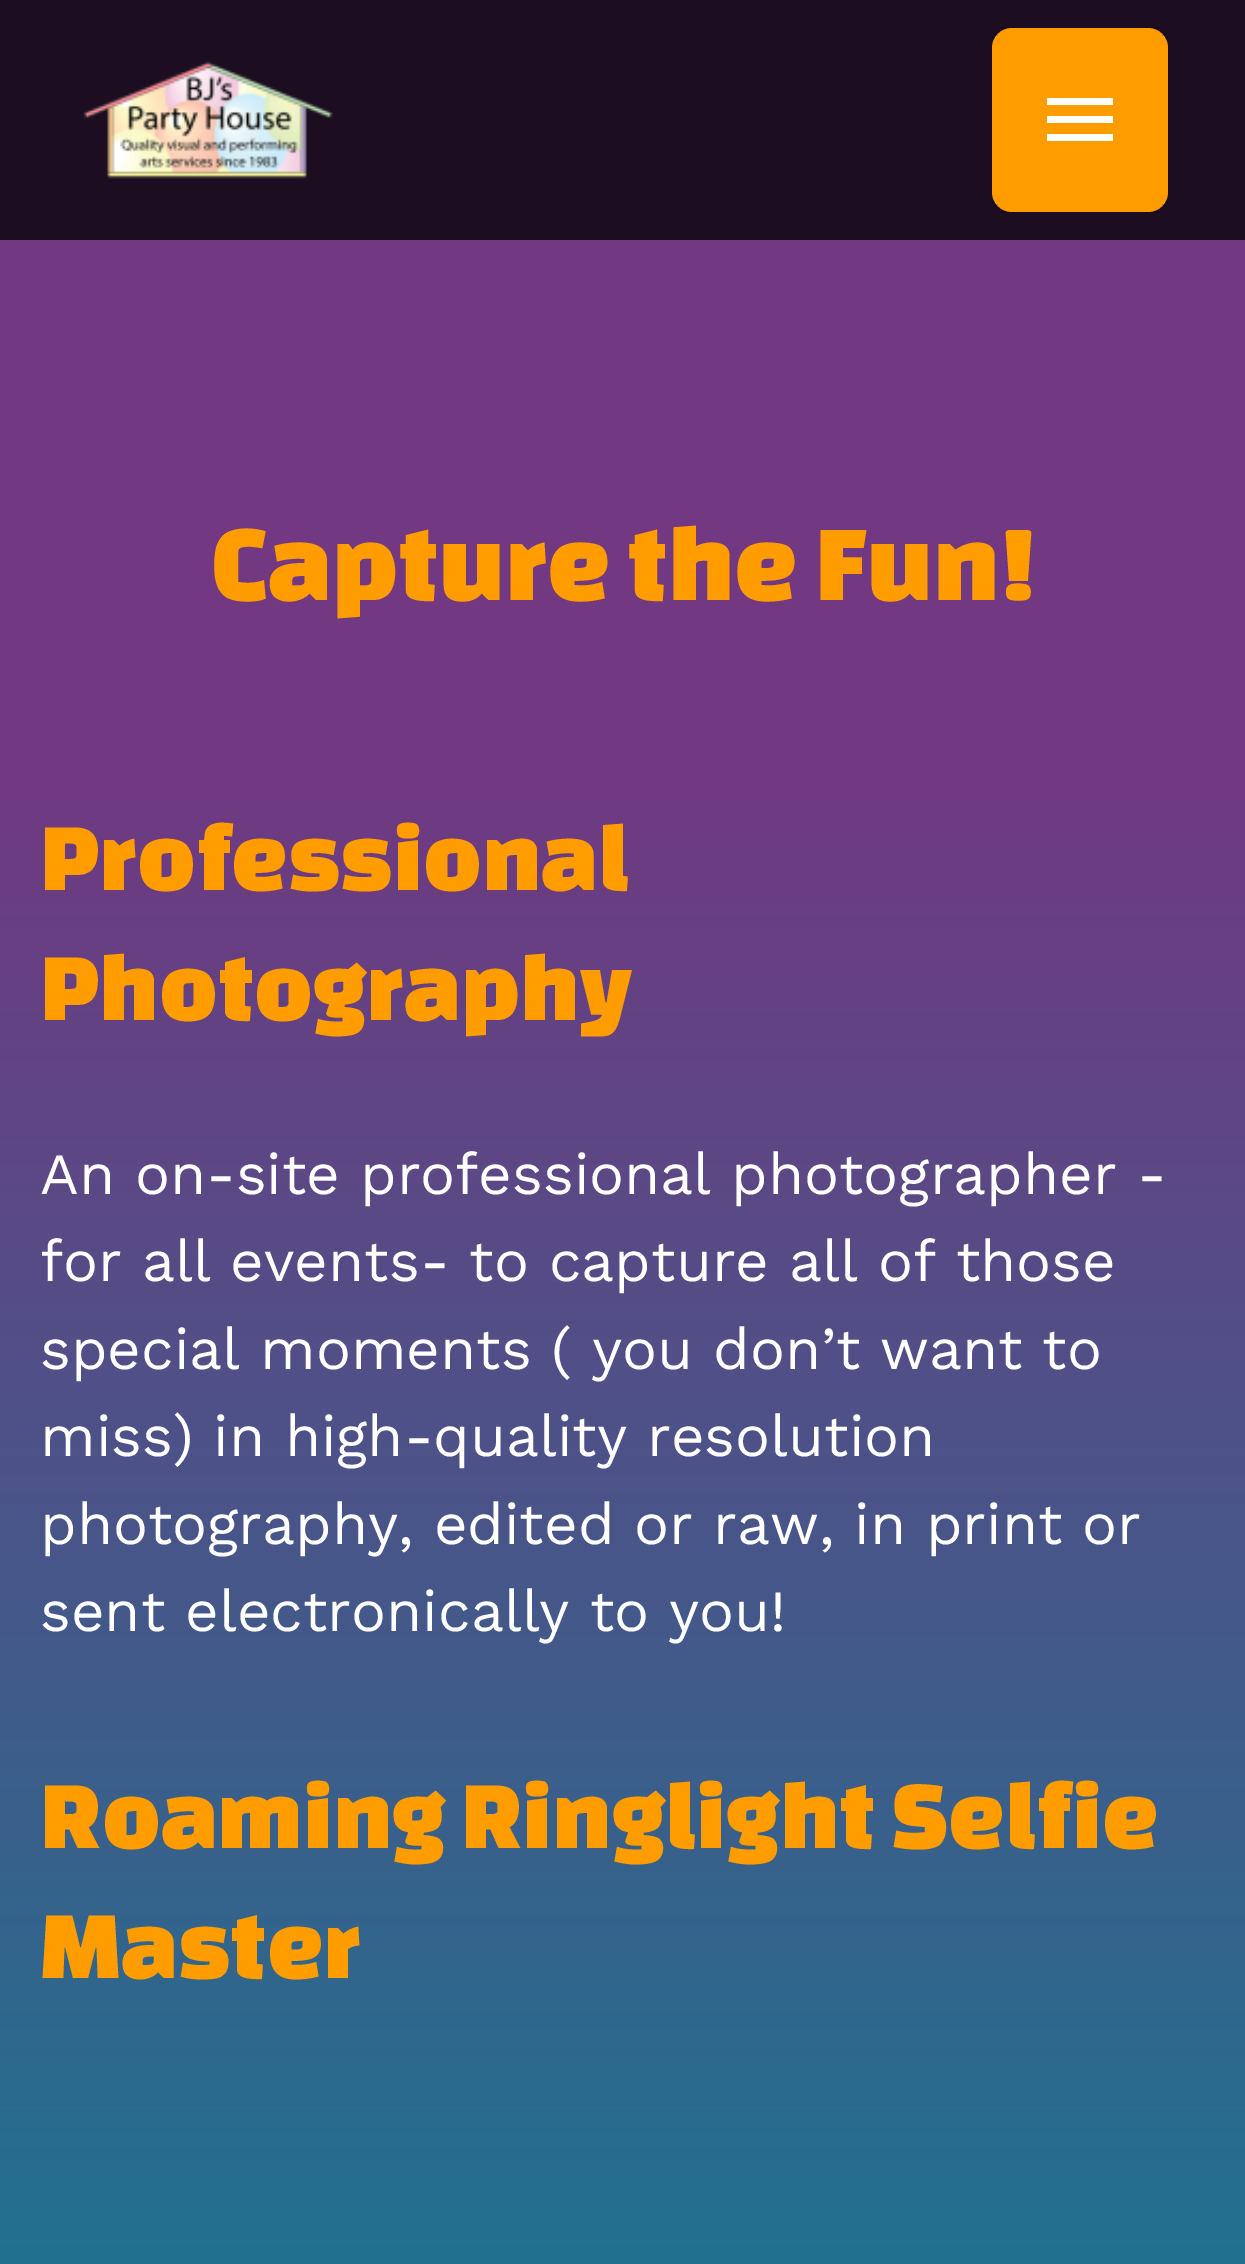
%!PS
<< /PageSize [1245 2264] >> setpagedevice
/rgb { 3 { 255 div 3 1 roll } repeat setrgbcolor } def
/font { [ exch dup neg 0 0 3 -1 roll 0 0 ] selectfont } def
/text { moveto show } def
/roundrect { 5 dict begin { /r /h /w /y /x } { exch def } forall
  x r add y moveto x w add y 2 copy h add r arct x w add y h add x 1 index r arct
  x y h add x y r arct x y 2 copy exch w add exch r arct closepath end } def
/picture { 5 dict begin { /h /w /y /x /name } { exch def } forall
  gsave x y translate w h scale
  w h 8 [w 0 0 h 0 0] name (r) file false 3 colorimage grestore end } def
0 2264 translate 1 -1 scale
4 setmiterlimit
114 56 129 rgb
0 0 1245 2264 rectfill
28 14 32 rgb
0 0 1245 240 rectfill
(img_01.rgb) 83 61 250 118 picture
255 156 0 rgb
992 28 176 184 20 roundrect fill
255 255 255 rgb
1047 98 moveto 66 0 rlineto 0 7 rlineto -66 0 rlineto closepath 1047 123 moveto 0 -7 rlineto 66 0 rlineto 0 7 rlineto closepath 1047 141 moveto 0 -7 rlineto 66 0 rlineto 0 7 rlineto closepath fill
gsave 0 799 moveto 1245 0 rlineto 0 1465 rlineto -1245 0 rlineto closepath clip newpath
<< /ShadingType 2 /ColorSpace /DeviceRGB /Coords [624 752 624 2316] /Extend [true true] /Function << /FunctionType 2 /Domain [0 1] /C0 [0.447 0.22 0.506] /C1 [0.122 0.451 0.565] /N 1 >> >> shfill grestore
/ChangaOne-Regular 112 font
255 156 0 rgb
(Capture the Fun!) 212 600 text
/ChangaOne-Regular 100 font
(Professional) 40 890 text
(Photography) 40 1020 text
/WorkSans-Regular 58.4 font
255 255 255 rgb
(An on-site professional photographer -) 40 1194 text
(for all events- to capture all of those) 40 1281 text
(special moments \( you don’t want to) 40 1369 text
(miss\) in high-quality resolution) 40 1456 text
(photography, edited or raw, in print or) 40 1544 text
(sent electronically to you!) 40 1631 text
/ChangaOne-Regular 100 font
255 156 0 rgb
(Roaming Ringlight Selfie) 40 1848 text
(Master) 40 1978 text
showpage
